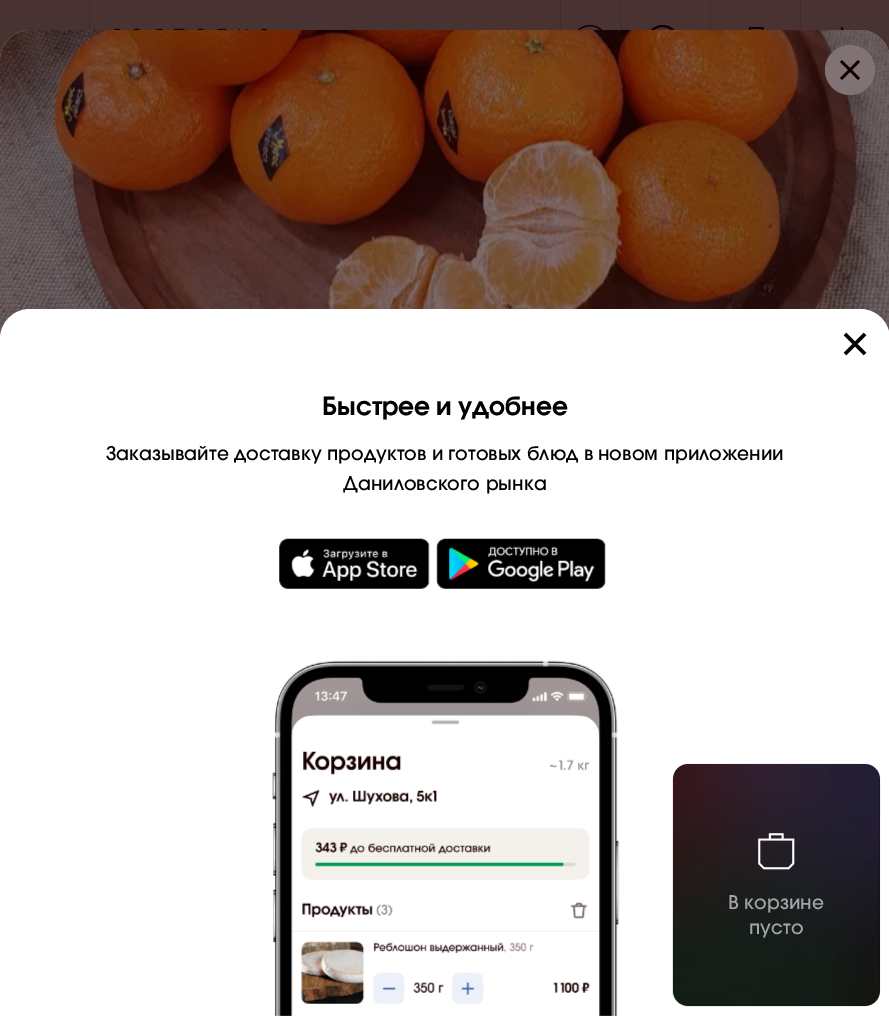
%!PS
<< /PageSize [889 1016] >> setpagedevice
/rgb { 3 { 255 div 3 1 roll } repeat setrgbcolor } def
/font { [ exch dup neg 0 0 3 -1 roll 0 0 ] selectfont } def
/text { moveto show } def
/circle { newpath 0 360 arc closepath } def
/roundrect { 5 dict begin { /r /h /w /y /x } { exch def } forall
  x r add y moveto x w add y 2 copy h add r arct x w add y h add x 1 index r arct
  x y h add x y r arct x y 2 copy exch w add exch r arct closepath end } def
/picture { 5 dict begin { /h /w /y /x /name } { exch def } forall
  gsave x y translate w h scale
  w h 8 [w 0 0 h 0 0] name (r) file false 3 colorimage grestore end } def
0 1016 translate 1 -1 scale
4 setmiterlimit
72 51 50 rgb
0 0 889 1016 rectfill
(img_08.rgb) 830 27 32 4 picture
122 107 105 rgb
30 30 moveto 830 0 rlineto 16.5 0 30 13.5 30 30 rcurveto 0 275 rlineto -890 0 rlineto 0 -275 rlineto 0 -16.5 13.5 -30 30 -30 rcurveto closepath fill
(img_09.rgb) 0 30 889 305 picture
255 255 255 rgb
30 309 moveto 830 0 rlineto 16.5 0 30 13.5 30 30 rcurveto 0 677 rlineto -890 0 rlineto 0 -677 rlineto 0 -16.5 13.5 -30 30 -30 rcurveto closepath fill
0 0 0 rgb
3.3 setlinewidth
1 setlinejoin
845 334 moveto 20 20 rlineto 865 334 moveto -20 20 rlineto stroke
(img_01.rgb) 279 538 151 51 picture
(img_02.rgb) 436 538 170 51 picture
(img_03.rgb) 272 660 348 356 picture
65 44 43 rgb
89 0 1 30 rectfill
(img_04.rgb) 113 28 155 2 picture
560 0 1 30 rectfill
(img_05.rgb) 577 25 26 5 picture
620 0 1 30 rectfill
(img_06.rgb) 650 24 25 6 picture
710 0 1 30 rectfill
(img_07.rgb) 748 26 16 4 picture
800 0 1 30 rectfill
129 115 115 rgb
850 70 25 circle fill
14 0 0 rgb
2.5 setlinewidth
841 61 moveto 18 18 rlineto 859 61 moveto -18 18 rlineto stroke
25 0 0 rgb
673 764 207 242 15 roundrect fill
(img_10.rgb) 672 763 209 244 picture
(img_11.rgb) 758 833 37 37 picture
/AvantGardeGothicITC-SemiBold 25 font
0 0 0 rgb
(Быстрее и удобнее) 322 415 text
/AvantGardeGothicITC-Medium 18.75 font
(Заказывайте доставку продуктов и) 106 460 text
(готовых блюд в) 448 460 text
(новом приложении) 598 460 text
(Даниловского рынка) 343 490 text
163 165 165 rgb
(В корзине) 728 909 text
(пусто) 749 934 text
showpage
